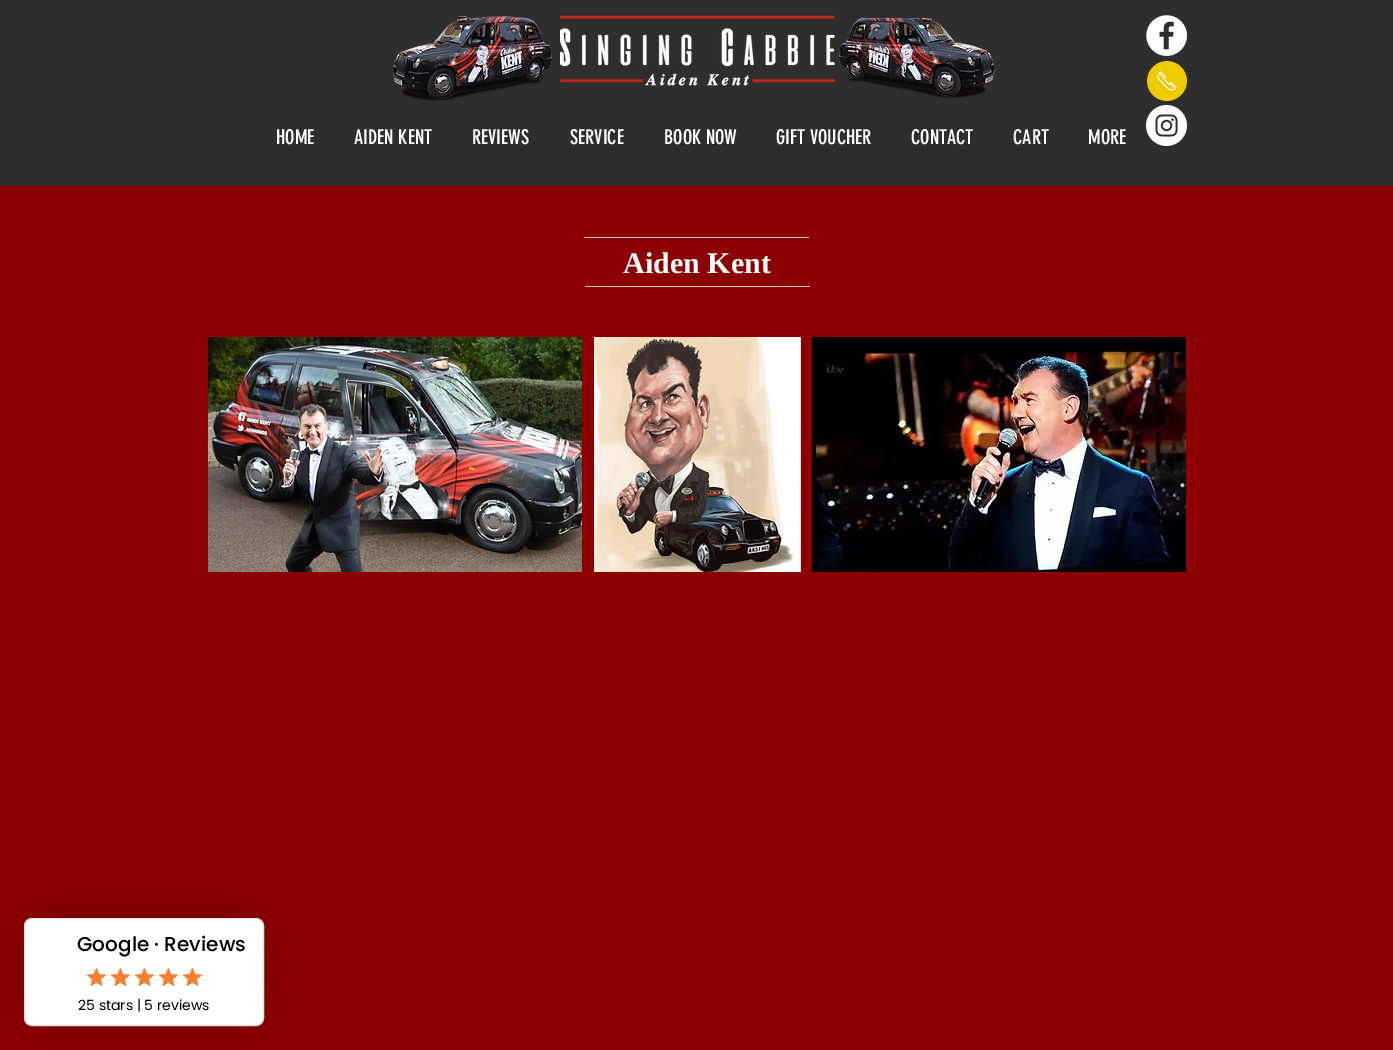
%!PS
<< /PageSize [1393 1050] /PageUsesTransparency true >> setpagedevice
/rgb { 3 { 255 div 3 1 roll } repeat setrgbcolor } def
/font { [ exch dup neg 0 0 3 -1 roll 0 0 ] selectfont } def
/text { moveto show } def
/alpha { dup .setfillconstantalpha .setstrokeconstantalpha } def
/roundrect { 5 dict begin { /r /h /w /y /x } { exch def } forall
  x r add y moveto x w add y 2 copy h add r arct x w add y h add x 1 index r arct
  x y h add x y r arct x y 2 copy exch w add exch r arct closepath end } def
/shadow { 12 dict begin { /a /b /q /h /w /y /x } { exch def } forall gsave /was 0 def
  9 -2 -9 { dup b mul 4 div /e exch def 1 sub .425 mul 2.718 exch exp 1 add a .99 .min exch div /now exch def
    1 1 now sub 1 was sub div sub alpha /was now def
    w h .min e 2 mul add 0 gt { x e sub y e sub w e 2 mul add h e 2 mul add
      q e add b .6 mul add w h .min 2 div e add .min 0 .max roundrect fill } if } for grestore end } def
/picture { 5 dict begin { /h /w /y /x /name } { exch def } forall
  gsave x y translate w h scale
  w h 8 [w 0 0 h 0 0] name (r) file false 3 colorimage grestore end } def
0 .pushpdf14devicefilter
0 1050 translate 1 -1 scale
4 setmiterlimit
139 0 0 rgb
0 0 1393 1050 rectfill
47 46 46 rgb
0 0 1393 186 rectfill
(img_01.rgb) 392 16 160 85 picture
(img_02.rgb) 560 15 275 71 picture
(img_03.rgb) 838 18 157 81 picture
(img_04.rgb) 1146 15 41 41 picture
(img_05.rgb) 1147 61 40 40 picture
(img_06.rgb) 1146 105 41 41 picture
198 198 198 rgb
584 237 225 1 rectfill
585 286 225 1 rectfill
(img_07.rgb) 208 337 374 235 picture
(img_08.rgb) 594 337 207 235 picture
(img_09.rgb) 812 337 374 235 picture
0 0 0 rgb
18 912 252 120 46 12 0.12 shadow
255 255 255 rgb
24.5 918.5 239 107 7.5 roundrect gsave fill grestore
229 229 229 rgb
stroke
(img_10.rgb) 86 967 20 20 picture
(img_11.rgb) 86 967 21 20 picture
(img_10.rgb) 110 967 20 20 picture
(img_11.rgb) 110 967 21 20 picture
(img_10.rgb) 134 967 20 20 picture
(img_11.rgb) 134 967 21 20 picture
(img_10.rgb) 158 967 20 20 picture
(img_11.rgb) 158 967 21 20 picture
(img_10.rgb) 182 967 20 20 picture
(img_11.rgb) 182 967 21 20 picture
/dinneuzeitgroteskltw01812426-Regular 20 font
255 255 255 rgb
(HOME) 276 144 text
(AIDEN KENT) 354 144 text
(REVIEWS) 472 144 text
(SERVICE) 570 144 text
(BOOK NOW) 664 144 text
(GIFT VOUCHER) 776 144 text
(CONTACT) 911 144 text
(CART) 1013 144 text
(MORE) 1088 144 text
/LiberationSerif-Bold 30 font
(Aiden Kent) 623 273 text
/Poppins-Medium 20 font
0 0 0 rgb
(Google · Reviews) 77 951 text
/Poppins-Regular 14 font
(25 stars | 5 reviews) 78 1010 text
.poppdf14devicefilter showpage
